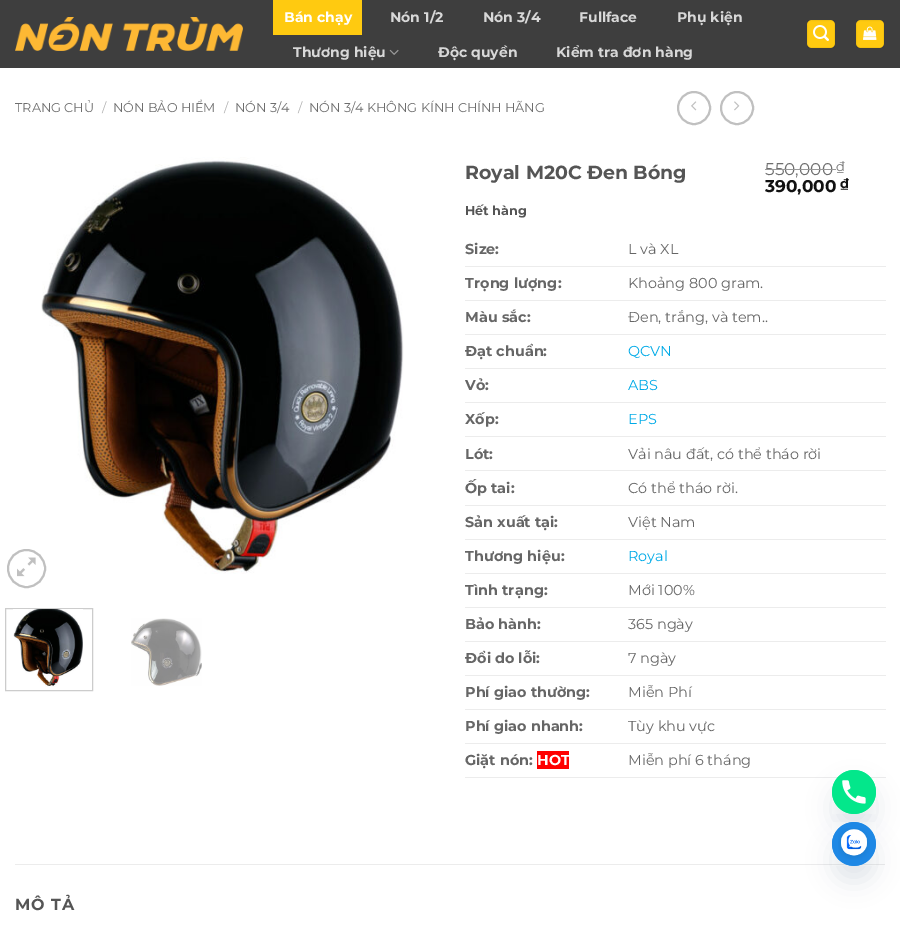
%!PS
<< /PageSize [900 947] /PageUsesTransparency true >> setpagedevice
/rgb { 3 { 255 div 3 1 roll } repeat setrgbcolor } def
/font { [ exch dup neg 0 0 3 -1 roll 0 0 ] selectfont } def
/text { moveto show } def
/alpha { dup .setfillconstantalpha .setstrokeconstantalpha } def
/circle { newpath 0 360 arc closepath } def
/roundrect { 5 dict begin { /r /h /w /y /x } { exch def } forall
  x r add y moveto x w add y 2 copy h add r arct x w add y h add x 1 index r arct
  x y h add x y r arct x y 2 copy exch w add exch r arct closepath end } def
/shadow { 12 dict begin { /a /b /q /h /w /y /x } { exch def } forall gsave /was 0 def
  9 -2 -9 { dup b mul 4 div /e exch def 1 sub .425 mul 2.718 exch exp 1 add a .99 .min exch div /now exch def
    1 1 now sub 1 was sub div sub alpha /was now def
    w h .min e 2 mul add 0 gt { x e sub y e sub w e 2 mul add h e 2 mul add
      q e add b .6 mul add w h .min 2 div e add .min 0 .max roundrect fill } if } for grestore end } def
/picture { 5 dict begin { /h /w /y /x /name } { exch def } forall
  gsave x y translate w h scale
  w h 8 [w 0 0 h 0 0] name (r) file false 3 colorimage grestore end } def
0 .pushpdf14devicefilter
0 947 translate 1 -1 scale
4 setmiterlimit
255 255 255 rgb
0 0 900 947 rectfill
62 62 62 rgb
0 0 900 68 rectfill
(img_01.rgb) 15 17 228 34 picture
255 202 16 rgb
273 0 89 35 rectfill
(img_02.rgb) 389 49 10 6 picture
807 20 28 28 5 roundrect fill
0.05 alpha
0 0 0 rgb
807.5 20.5 27 27 rectstroke
1 alpha
(img_03.rgb) 813 25 16 16 picture
255 202 16 rgb
856 20 28 28 5 roundrect fill
0.05 alpha
0 0 0 rgb
856.5 20.5 27 27 rectstroke
1 alpha
(img_04.rgb) 863 26 14 14 picture
192 192 192 rgb
2 setlinewidth
694 108 16 circle stroke
(img_05.rgb) 691 101 6 10 picture
737 108 16 circle stroke
(img_06.rgb) 734 101 6 10 picture
(img_08.rgb) 41 157 363 417 picture
26.5 568.5 18.5 circle stroke
(img_07.rgb) 17 557 19 20 picture
204 204 204 rgb
1 setlinewidth
5.5 608.5 87 82 rectstroke
(img_09.rgb) 13 609 70 78 picture
(img_10.rgb) 131 618 71 68 picture
236 236 236 rgb
465 266 421 1 rectfill
465 300 421 1 rectfill
465 334 421 1 rectfill
465 368 421 1 rectfill
465 402 421 1 rectfill
465 436 421 1 rectfill
465 470 421 1 rectfill
465 505 421 1 rectfill
465 539 421 1 rectfill
465 573 421 1 rectfill
465 607 421 1 rectfill
465 641 421 1 rectfill
465 675 421 1 rectfill
465 709 421 1 rectfill
465 743 421 1 rectfill
255 0 0 rgb
537 751 32 18 rectfill
236 236 236 rgb
465 777 421 1 rectfill
15 864 870 1 rectfill
73 104 126 rgb
832 786 44 44 22 12 0.16 shadow
(img_11.rgb) 832 770 44 44 picture
832 838 44 44 22 12 0.16 shadow
30 136 229 rgb
854 844 22 circle fill
(img_12.rgb) 832 822 44 44 picture
(img_13.rgb) 838 828 32 32 picture
/Montserrat-Bold 14 font
255 255 255 rgb
(Bán chạy) 284 22 text
216 216 216 rgb
(Nón 1/2) 390 22 text
(Nón 3/4) 483 22 text
(Fullface) 579 22 text
(Phụ kiện) 677 22 text
(Thương hiệu) 293 57 text
(Độc quyền) 438 57 text
(Kiểm tra đơn hàng) 556 57 text
/Montserrat-Regular 12.75 font
110 110 110 rgb
(TRANG CHỦ) 15 112 text
178 178 178 rgb
(/) 102 112 text
110 110 110 rgb
(NÓN BẢO HIỂM) 113 112 text
178 178 178 rgb
(/) 224 112 text
110 110 110 rgb
(NÓN 3/4) 235 112 text
178 178 178 rgb
(/) 298 112 text
110 110 110 rgb
(NÓN 3/4 KHÔNG KÍNH CHÍNH HÃNG) 309 112 text
/Montserrat-Bold 19 font
85 85 85 rgb
(Royal M20C Đen Bóng) 465 179 text
/Montserrat-Regular 17 font
110 110 110 rgb
(550,000) 765 175 text
153 153 153 rgb
765 169 71 1 rectfill
/Montserrat-Regular 13 font
110 110 110 rgb
(₫) 836 171 text
/Montserrat-Bold 17 font
17 17 17 rgb
(390,000) 765 192 text
/Montserrat-Bold 13 font
(₫) 840 188 text
/Montserrat-Bold 12.75 font
85 85 85 rgb
(Hết hàng) 465 215 text
/Montserrat-Bold 14.4 font
102 102 102 rgb
(Size:) 465 254 text
/Montserrat-Regular 14.4 font
(L và XL) 628 254 text
/Montserrat-Bold 14.4 font
(Trọng lượng:) 465 288 text
/Montserrat-Regular 14.4 font
(Khoảng 800 gram.) 628 288 text
/Montserrat-Bold 14.4 font
(Màu sắc:) 465 322 text
/Montserrat-Regular 14.4 font
(Đen, trắng, và tem..) 628 322 text
/Montserrat-Bold 14.4 font
(Đạt chuẩn:) 465 356 text
/Montserrat-Regular 14.4 font
0 170 231 rgb
(QCVN) 628 356 text
/Montserrat-Bold 14.4 font
102 102 102 rgb
(Vỏ:) 465 390 text
/Montserrat-Regular 14.4 font
0 170 231 rgb
(ABS) 628 390 text
/Montserrat-Bold 14.4 font
102 102 102 rgb
(Xốp:) 465 424 text
/Montserrat-Regular 14.4 font
0 170 231 rgb
(EPS) 628 424 text
/Montserrat-Bold 14.4 font
102 102 102 rgb
(Lót:) 465 459 text
/Montserrat-Regular 14.4 font
(Vải nâu đất, có thể tháo rời) 628 459 text
/Montserrat-Bold 14.4 font
(Ốp tai:) 465 493 text
/Montserrat-Regular 14.4 font
(Có thể tháo rời.) 628 493 text
/Montserrat-Bold 14.4 font
(Sản xuất tại:) 465 527 text
/Montserrat-Regular 14.4 font
(Việt Nam) 628 527 text
/Montserrat-Bold 14.4 font
(Thương hiệu:) 465 561 text
/Montserrat-Regular 14.4 font
0 170 231 rgb
(Royal) 628 561 text
/Montserrat-Bold 14.4 font
102 102 102 rgb
(Tình trạng:) 465 595 text
/Montserrat-Regular 14.4 font
(Mới 100%) 628 595 text
/Montserrat-Bold 14.4 font
(Bảo hành:) 465 629 text
/Montserrat-Regular 14.4 font
(365 ngày) 628 629 text
/Montserrat-Bold 14.4 font
(Đổi do lỗi:) 465 663 text
/Montserrat-Regular 14.4 font
(7 ngày) 628 663 text
/Montserrat-Bold 14.4 font
(Phí giao thường:) 465 697 text
/Montserrat-Regular 14.4 font
(Miễn Phí) 628 697 text
/Montserrat-Bold 14.4 font
(Phí giao nhanh:) 465 731 text
/Montserrat-Regular 14.4 font
(Tùy khu vực) 628 731 text
/Montserrat-Bold 14.4 font
(Giặt nón:) 465 765 text
255 255 255 rgb
(HOT) 537 765 text
/Montserrat-Regular 14.4 font
102 102 102 rgb
(Miễn phí 6 tháng) 628 765 text
/Montserrat-Bold 16 font
85 85 85 rgb
15 910 moveto 1 0 (MÔ TẢ) ashow
.poppdf14devicefilter showpage
